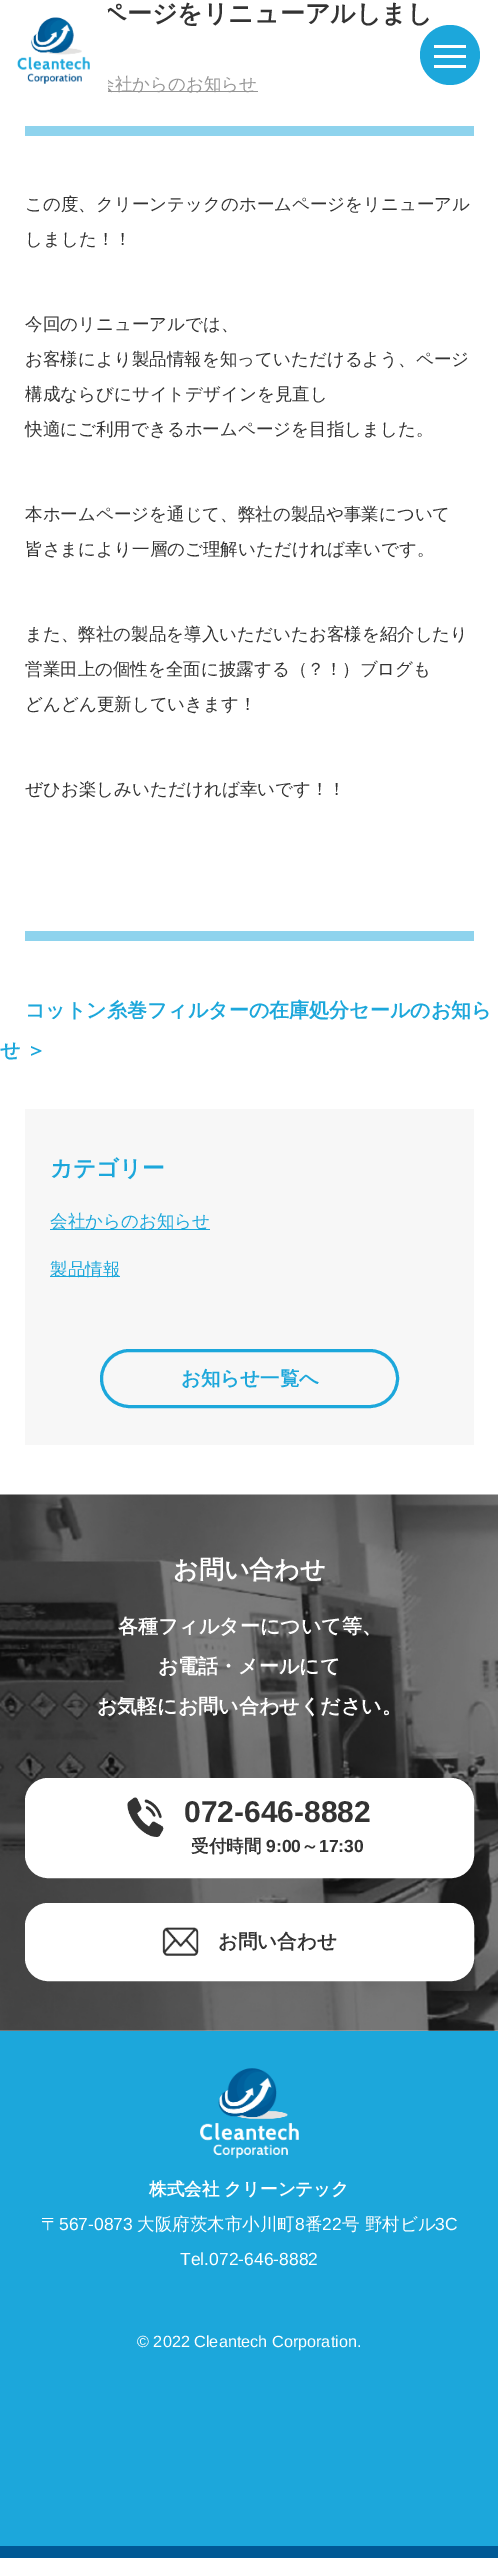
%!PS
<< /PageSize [498 2558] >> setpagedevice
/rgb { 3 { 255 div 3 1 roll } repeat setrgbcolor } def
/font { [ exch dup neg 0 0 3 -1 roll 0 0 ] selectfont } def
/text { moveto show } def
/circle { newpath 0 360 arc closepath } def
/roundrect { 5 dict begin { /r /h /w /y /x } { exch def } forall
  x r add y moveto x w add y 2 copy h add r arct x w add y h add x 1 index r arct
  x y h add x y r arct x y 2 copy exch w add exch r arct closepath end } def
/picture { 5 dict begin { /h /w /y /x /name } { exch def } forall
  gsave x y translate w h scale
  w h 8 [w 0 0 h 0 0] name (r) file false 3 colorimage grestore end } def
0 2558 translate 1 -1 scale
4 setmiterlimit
255 255 255 rgb
0 0 498 2558 rectfill
142 211 237 rgb
25 126 449 10 rectfill
149 149 149 rgb
108 91 150 1 rectfill
142 211 237 rgb
25 931 449 10 rectfill
247 247 247 rgb
25 1109 449 336 rectfill
28 167 219 rgb
50 1229 160 1 rectfill
50 1276 70 1 rectfill
3 setlinewidth
101.5 1350.5 296 56 28 roundrect stroke
(img_01.rgb) 17 17 73 67 picture
(img_02.rgb) 0 1494 498 537 picture
255 255 255 rgb
26.5 1779.5 446 97 21.5 roundrect gsave fill grestore
stroke
(img_03.rgb) 127 1797 37 40 picture
26.5 1904.5 446 75 21.5 roundrect gsave fill grestore
stroke
(img_04.rgb) 162 1927 37 29 picture
28 167 219 rgb
0 2031 498 515 rectfill
0 89 149 rgb
0 2546 498 12 rectfill
(img_05.rgb) 200 2068 99 91 picture
/WenQuanYiZenHei-Bold 25 font
51 51 51 rgb
(ページをリニューアルしまし) 101 22 text
/WenQuanYiZenHei-Medium 17.5 font
149 149 149 rgb
(会社からのお知らせ) 97 90 text
51 51 51 rgb
(この度、クリーンテックのホームページをリニューアル) 25 210 text
(しました！！) 25 245 text
(今回のリニューアルでは、) 25 330 text
(お客様により製品情報を知っていただけるよう、ページ) 25 365 text
(構成ならびにサイトデザインを見直し) 25 400 text
(快適にご利用できるホームページを目指しました。) 25 435 text
(本ホームページを通じて、弊社の製品や事業について) 25 520 text
(皆さまにより一層のご理解いただければ幸いです。) 25 555 text
(また、弊社の製品を導入いただいたお客様を紹介したり) 25 640 text
(営業田上の個性を全面に披露する（？！）ブログも) 25 675 text
(どんどん更新していきます！) 25 710 text
(ぜひお楽しみいただければ幸いです！！) 25 795 text
/WenQuanYiZenHei-Bold 20 font
28 167 219 rgb
(コットン糸巻フィルターの在庫処分セールのお知ら) 25 1017 text
(せ ＞) 0 1057 text
/WenQuanYiZenHei-Bold 22.5 font
(カテゴリー) 50 1176 text
/WenQuanYiZenHei-Medium 17.5 font
(会社からのお知らせ) 50 1227 text
(製品情報) 50 1275 text
/WenQuanYiZenHei-Bold 19.5 font
(お知らせ一覧へ) 181 1385 text
255 255 255 rgb
97 10 11 82 rectfill
28 167 219 rgb
450 55 30 circle fill
255 255 255 rgb
434 45 32 3 rectfill
434 55 32 3 rectfill
434 65 32 3 rectfill
/WenQuanYiZenHei-Bold 25 font
(お問い合わせ) 173 1578 text
/WenQuanYiZenHei-Bold 20 font
(各種フィルターについて等、) 118 1633 text
(お電話・メールにて) 158 1673 text
(お気軽にお問い合わせください。) 97 1713 text
/LiberationSans-Bold 30 font
51 51 51 rgb
(072-646-8882) 184 1822 text
/WenQuanYiZenHei-Bold 17.5 font
(受付時間) 191 1852 text
/LiberationSans-Bold 17.5 font
(9:00) 266 1852 text
/WenQuanYiZenHei-Bold 17.5 font
(～) 301 1852 text
/LiberationSans-Bold 17.5 font
(17:30) 319 1852 text
/WenQuanYiZenHei-Bold 19.5 font
(お問い合わせ) 218 1948 text
/WenQuanYiZenHei-Bold 17.5 font
255 255 255 rgb
(株式会社 クリーンテック) 149 2195 text
/WenQuanYiZenHei-Medium 17.5 font
(〒) 41 2230 text
/LiberationSans-Regular 17.5 font
(567-0873) 59 2230 text
/WenQuanYiZenHei-Medium 17.5 font
(大阪府茨木市小川町) 137 2230 text
/LiberationSans-Regular 17.5 font
(8) 295 2230 text
/WenQuanYiZenHei-Medium 17.5 font
(番) 305 2230 text
/LiberationSans-Regular 17.5 font
(22) 322 2230 text
/WenQuanYiZenHei-Medium 17.5 font
(号 野村ビル) 342 2230 text
/LiberationSans-Regular 17.5 font
(3C) 435 2230 text
(Tel.072-646-8882) 180 2265 text
/LiberationSans-Regular 16.25 font
(© 2022 Cleantech Corporation.) 137 2347 text
showpage
